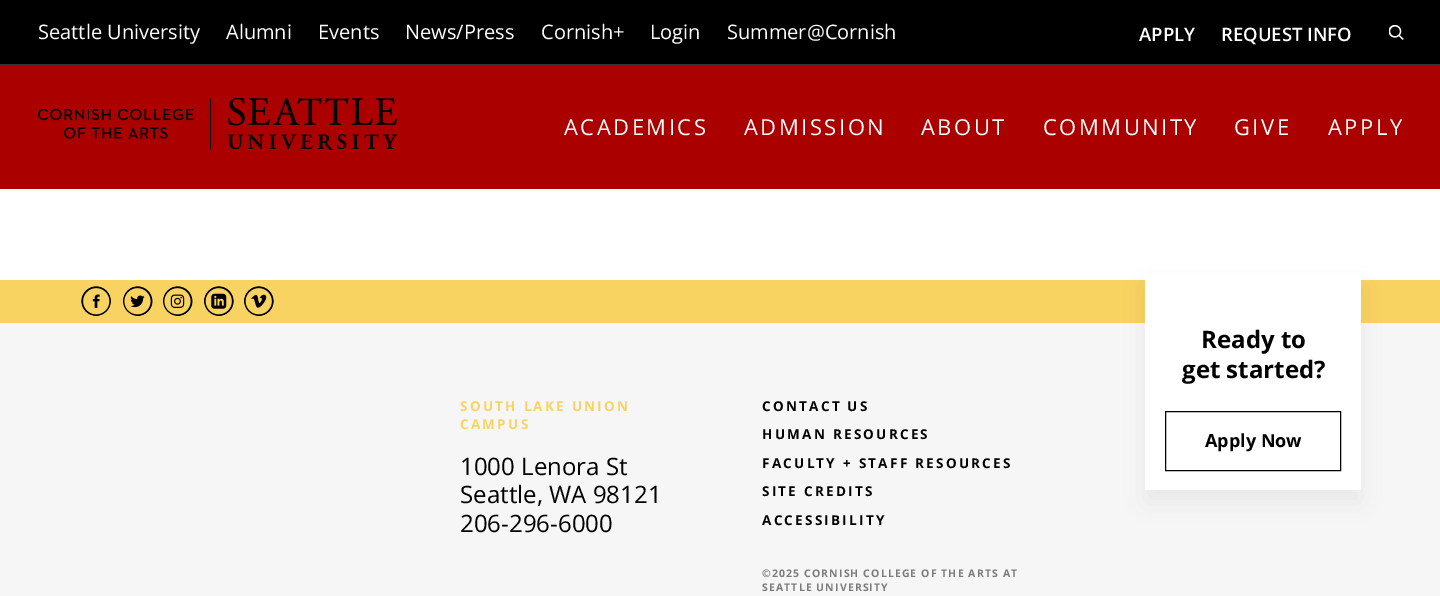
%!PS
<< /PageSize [1440 596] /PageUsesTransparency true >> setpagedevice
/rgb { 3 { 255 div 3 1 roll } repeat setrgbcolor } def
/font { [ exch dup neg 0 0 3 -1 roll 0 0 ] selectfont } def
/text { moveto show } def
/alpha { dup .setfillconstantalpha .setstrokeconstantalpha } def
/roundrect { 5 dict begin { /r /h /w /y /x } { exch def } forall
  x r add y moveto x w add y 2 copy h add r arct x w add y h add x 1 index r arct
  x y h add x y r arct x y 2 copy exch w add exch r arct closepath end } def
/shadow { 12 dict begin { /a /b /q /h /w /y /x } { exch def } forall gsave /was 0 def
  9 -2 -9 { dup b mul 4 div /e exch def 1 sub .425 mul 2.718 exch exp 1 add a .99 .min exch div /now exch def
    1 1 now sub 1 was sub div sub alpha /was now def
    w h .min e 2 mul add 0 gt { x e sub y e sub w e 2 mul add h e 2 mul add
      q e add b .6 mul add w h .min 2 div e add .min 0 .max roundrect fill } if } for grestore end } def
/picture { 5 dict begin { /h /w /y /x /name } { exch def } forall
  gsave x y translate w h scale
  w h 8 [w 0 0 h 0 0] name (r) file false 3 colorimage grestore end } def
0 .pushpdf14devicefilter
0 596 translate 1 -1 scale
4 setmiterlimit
255 255 255 rgb
0 0 1440 596 rectfill
170 0 0 rgb
0 65 1440 124 rectfill
0 0 0 rgb
0 0 1440 64 rectfill
51 51 51 rgb
0 64 1440 1 rectfill
(img_01.rgb) 1389 25 15 15 picture
(img_02.rgb) 38 98 360 52 picture
246 246 246 rgb
0 323 1440 273 rectfill
248 211 97 rgb
0 280 1440 43 rectfill
(img_03.rgb) 81 286 30 30 picture
(img_04.rgb) 123 286 30 30 picture
(img_05.rgb) 163 286 30 30 picture
(img_06.rgb) 204 286 30 30 picture
(img_07.rgb) 244 286 30 30 picture
gsave
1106 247 moveto 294 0 rlineto 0 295 rlineto -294 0 rlineto closepath 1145 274 moveto 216 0 rlineto 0 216 rlineto -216 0 rlineto closepath eoclip newpath
0 0 0 rgb
1145 286 216 217 0 12.5 0.06 shadow
grestore
255 255 255 rgb
1145 280 216 210 rectfill
0 0 0 rgb
1165.5 411.5 175 59 rectstroke
/OpenSans-Regular 20 font
255 255 255 rgb
(Seattle University) 38 39 text
(Alumni) 226 39 text
(Events) 318 39 text
(News/Press) 405 39 text
(Cornish+) 541 39 text
(Login) 650 39 text
(Summer@Cornish) 727 39 text
/OpenSans-SemiBold 18.5 font
(APPLY) 1139 41 text
(REQUEST INFO) 1221 41 text
/OpenSans-Regular 22 font
564 135 moveto 2.5 0 (ACADEMICS) ashow
744 135 moveto 2.5 0 (ADMISSION) ashow
921 135 moveto 2.5 0 (ABOUT) ashow
1043 135 moveto 2.5 0 (COMMUNITY) ashow
1234 135 moveto 2.5 0 (GIVE) ashow
1328 135 moveto 2.5 0 (APPLY) ashow
/OpenSans-Bold 13.5 font
248 211 97 rgb
460 411 moveto 2.25 0 (SOUTH LAKE UNION) ashow
460 429 moveto 2.25 0 (CAMPUS) ashow
/OpenSans-Regular 24 font
0 0 0 rgb
(1000 Lenora St) 460 475 text
(Seattle, WA 98121) 460 503 text
(206-296-6000) 460 532 text
/OpenSans-Bold 13.5 font
762 411 moveto 2.25 0 (CONTACT US) ashow
762 439 moveto 2.25 0 (HUMAN RESOURCES) ashow
762 468 moveto 2.25 0 (FACULTY + STAFF RESOURCES) ashow
762 496 moveto 2.25 0 (SITE CREDITS) ashow
762 525 moveto 2.25 0 (ACCESSIBILITY) ashow
/OpenSans-Bold 10.5 font
123 123 123 rgb
762 577 moveto 1.1 0 (©2025 CORNISH COLLEGE OF THE ARTS AT) ashow
762 591 moveto 1.1 0 (SEATTLE UNIVERSITY) ashow
/OpenSans-Bold 24 font
0 0 0 rgb
(Ready to) 1201 348 text
(get started?) 1182 378 text
/OpenSans-Bold 18 font
(Apply Now) 1205 447 text
.poppdf14devicefilter showpage
